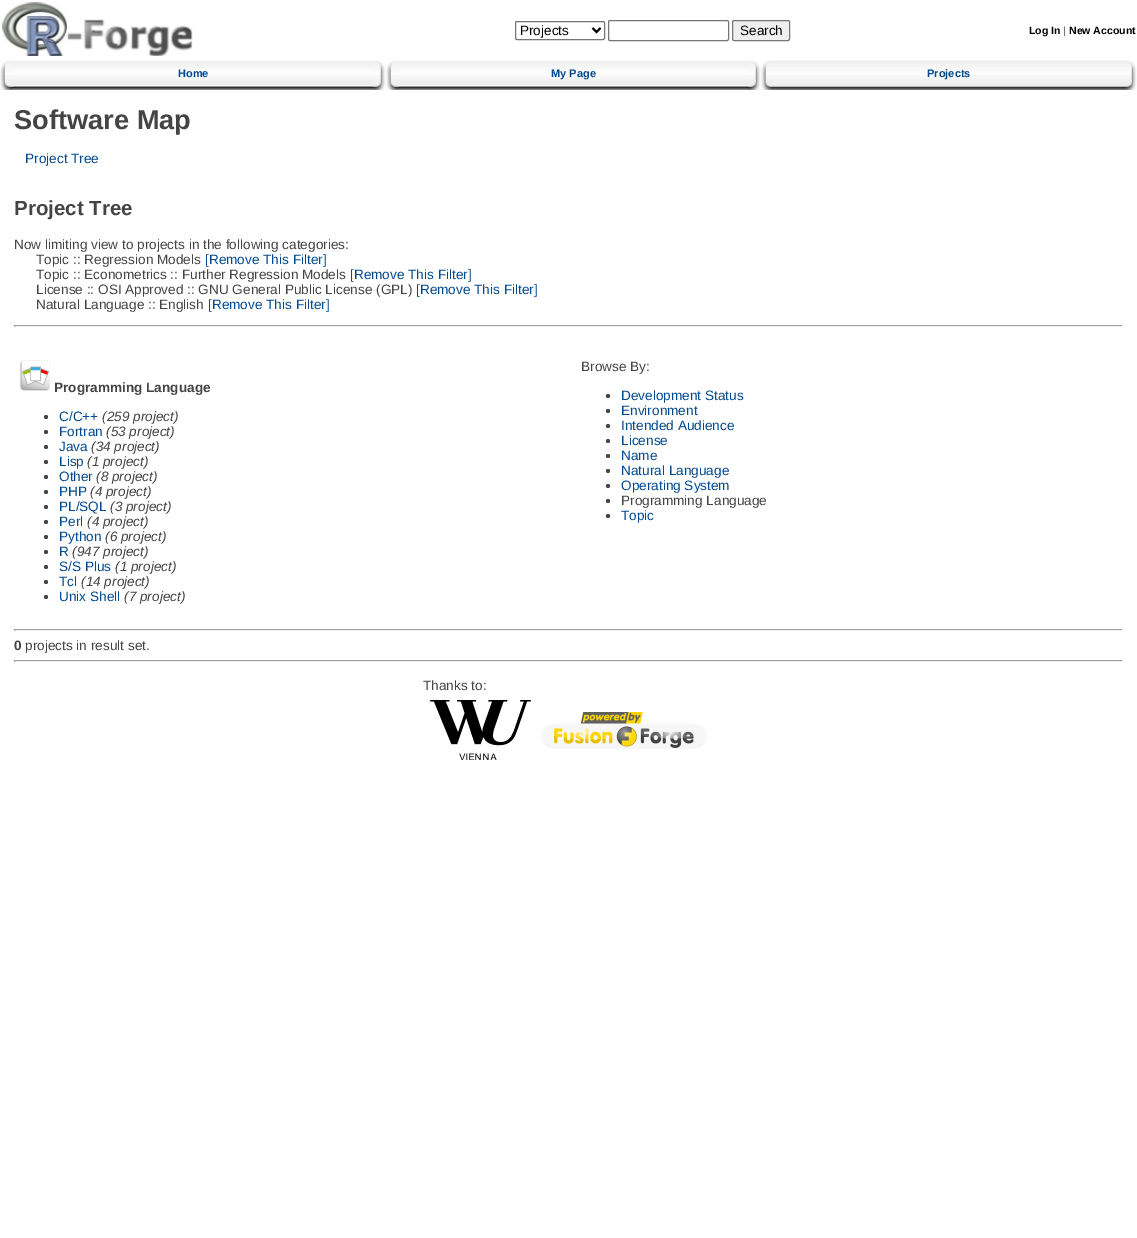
%!PS
<< /PageSize [1137 1238] >> setpagedevice
/rgb { 3 { 255 div 3 1 roll } repeat setrgbcolor } def
/font { [ exch dup neg 0 0 3 -1 roll 0 0 ] selectfont } def
/text { moveto show } def
/circle { newpath 0 360 arc closepath } def
/roundrect { 5 dict begin { /r /h /w /y /x } { exch def } forall
  x r add y moveto x w add y 2 copy h add r arct x w add y h add x 1 index r arct
  x y h add x y r arct x y 2 copy exch w add exch r arct closepath end } def
/picture { 5 dict begin { /h /w /y /x /name } { exch def } forall
  gsave x y translate w h scale
  w h 8 [w 0 0 h 0 0] name (r) file false 3 colorimage grestore end } def
0 1238 translate 1 -1 scale
4 setmiterlimit
255 255 255 rgb
0 0 1137 1238 rectfill
(img_01.rgb) 2 2 191 54 picture
118 118 118 rgb
515.5 21.5 89 18 1.5 roundrect stroke
0 0 0 rgb
2 setlinewidth
592.5 28 moveto 4 4 rlineto 4 -4 rlineto stroke
118 118 118 rgb
1 setlinewidth
608.5 20.5 120 20 1.5 roundrect stroke
239 239 239 rgb
732.5 20.5 57 20 1.5 roundrect gsave fill grestore
118 118 118 rgb
stroke
(img_02.rgb) 0 60 13 30 picture
(img_03.rgb) 13 60 360 30 picture
(img_04.rgb) 373 60 13 30 picture
(img_02.rgb) 386 60 13 30 picture
(img_05.rgb) 399 60 349 30 picture
(img_04.rgb) 748 60 13 30 picture
(img_02.rgb) 761 60 13 30 picture
(img_06.rgb) 774 60 350 30 picture
(img_04.rgb) 1124 60 13 30 picture
159 159 159 rgb
14 325 1109 1 rectfill
238 238 238 rgb
1122 325 1 2 rectfill
14 326 1109 1 rectfill
159 159 159 rgb
14 325 1 2 rectfill
(img_07.rgb) 19 360 31 31 picture
68 68 68 rgb
46 417 2 circle fill
46 432 2 circle fill
46 447 2 circle fill
46 462 2 circle fill
46 477 2 circle fill
46 492 2 circle fill
46 507 2 circle fill
46 522 2 circle fill
46 537 2 circle fill
46 552 2 circle fill
46 567 2 circle fill
46 582 2 circle fill
46 597 2 circle fill
608 396 2 circle fill
608 411 2 circle fill
608 426 2 circle fill
608 441 2 circle fill
608 456 2 circle fill
608 471 2 circle fill
608 486 2 circle fill
608 501 2 circle fill
608 516 2 circle fill
159 159 159 rgb
14 629 1109 1 rectfill
238 238 238 rgb
1122 629 1 2 rectfill
14 630 1109 1 rectfill
159 159 159 rgb
14 629 1 2 rectfill
14 660 1109 1 rectfill
238 238 238 rgb
1122 660 1 2 rectfill
14 661 1109 1 rectfill
159 159 159 rgb
14 660 1 2 rectfill
(img_08.rgb) 430 700 101 60 picture
(img_09.rgb) 541 712 166 37 picture
/LiberationSans-Regular 13.5 font
0 0 0 rgb
(Projects) 520 35 text
(Search) 740 35 text
/LiberationSans-Bold 10.5 font
(Log In) 1029 34 text
/LiberationSans-Regular 10.5 font
68 68 68 rgb
(|) 1063 34 text
/LiberationSans-Bold 10.5 font
0 0 0 rgb
(New Account) 1069 34 text
/LiberationSans-Bold 11 font
1 73 144 rgb
(Home) 178 77 text
(My Page) 551 77 text
(Projects) 927 77 text
/LiberationSans-Bold 27.25 font
68 68 68 rgb
(Software Map) 14 129 text
/LiberationSans-Regular 13.6 font
1 73 144 rgb
(Project Tree) 25 163 text
/LiberationSans-Bold 20.5 font
68 68 68 rgb
(Project Tree) 14 215 text
/LiberationSans-Regular 13.6 font
(Now limiting view to projects in the following categories:) 14 249 text
(Topic :: Regression Models) 36 264 text
1 73 144 rgb
([Remove This Filter]) 205 264 text
68 68 68 rgb
(Topic :: Econometrics :: Further Regression Models) 36 279 text
1 73 144 rgb
([Remove This Filter]) 350 279 text
68 68 68 rgb
(License :: OSI Approved :: GNU General Public License \(GPL\)) 36 294 text
1 73 144 rgb
([Remove This Filter]) 416 294 text
68 68 68 rgb
(Natural Language :: English) 36 309 text
1 73 144 rgb
([Remove This Filter]) 208 309 text
/LiberationSans-Bold 13.6 font
68 68 68 rgb
(Programming Language) 54 392 text
/LiberationSans-Regular 13.6 font
1 73 144 rgb
(C/C++) 59 421 text
/LiberationSans-Italic 13.6 font
68 68 68 rgb
(\(259 project\)) 102 421 text
/LiberationSans-Regular 13.6 font
1 73 144 rgb
(Fortran) 59 436 text
/LiberationSans-Italic 13.6 font
68 68 68 rgb
(\(53 project\)) 106 436 text
/LiberationSans-Regular 13.6 font
1 73 144 rgb
(Java) 59 451 text
/LiberationSans-Italic 13.6 font
68 68 68 rgb
(\(34 project\)) 91 451 text
/LiberationSans-Regular 13.6 font
1 73 144 rgb
(Lisp) 59 466 text
/LiberationSans-Italic 13.6 font
68 68 68 rgb
(\(1 project\)) 87 466 text
/LiberationSans-Regular 13.6 font
1 73 144 rgb
(Other) 59 481 text
/LiberationSans-Italic 13.6 font
68 68 68 rgb
(\(8 project\)) 96 481 text
/LiberationSans-Regular 13.6 font
1 73 144 rgb
(PHP) 59 496 text
/LiberationSans-Italic 13.6 font
68 68 68 rgb
(\(4 project\)) 90 496 text
/LiberationSans-Regular 13.6 font
1 73 144 rgb
(PL/SQL) 59 511 text
/LiberationSans-Italic 13.6 font
68 68 68 rgb
(\(3 project\)) 110 511 text
/LiberationSans-Regular 13.6 font
1 73 144 rgb
(Perl) 59 526 text
/LiberationSans-Italic 13.6 font
68 68 68 rgb
(\(4 project\)) 87 526 text
/LiberationSans-Regular 13.6 font
1 73 144 rgb
(Python) 59 541 text
/LiberationSans-Italic 13.6 font
68 68 68 rgb
(\(6 project\)) 105 541 text
/LiberationSans-Regular 13.6 font
1 73 144 rgb
(R) 59 556 text
/LiberationSans-Italic 13.6 font
68 68 68 rgb
(\(947 project\)) 72 556 text
/LiberationSans-Regular 13.6 font
1 73 144 rgb
(S/S Plus) 59 571 text
/LiberationSans-Italic 13.6 font
68 68 68 rgb
(\(1 project\)) 115 571 text
/LiberationSans-Regular 13.6 font
1 73 144 rgb
(Tcl) 59 586 text
/LiberationSans-Italic 13.6 font
68 68 68 rgb
(\(14 project\)) 81 586 text
/LiberationSans-Regular 13.6 font
1 73 144 rgb
(Unix Shell) 59 601 text
/LiberationSans-Italic 13.6 font
68 68 68 rgb
(\(7 project\)) 124 601 text
/LiberationSans-Regular 13.6 font
(Browse By:) 581 371 text
1 73 144 rgb
(Development Status) 621 400 text
(Environment) 621 415 text
(Intended Audience) 621 430 text
(License) 621 445 text
(Name) 621 460 text
(Natural Language) 621 475 text
(Operating System) 621 490 text
68 68 68 rgb
(Programming Language) 621 505 text
1 73 144 rgb
(Topic) 621 520 text
/LiberationSans-Bold 13.6 font
68 68 68 rgb
(0) 14 650 text
/LiberationSans-Regular 13.6 font
(projects in result set.) 25 650 text
(Thanks to:) 423 690 text
showpage
